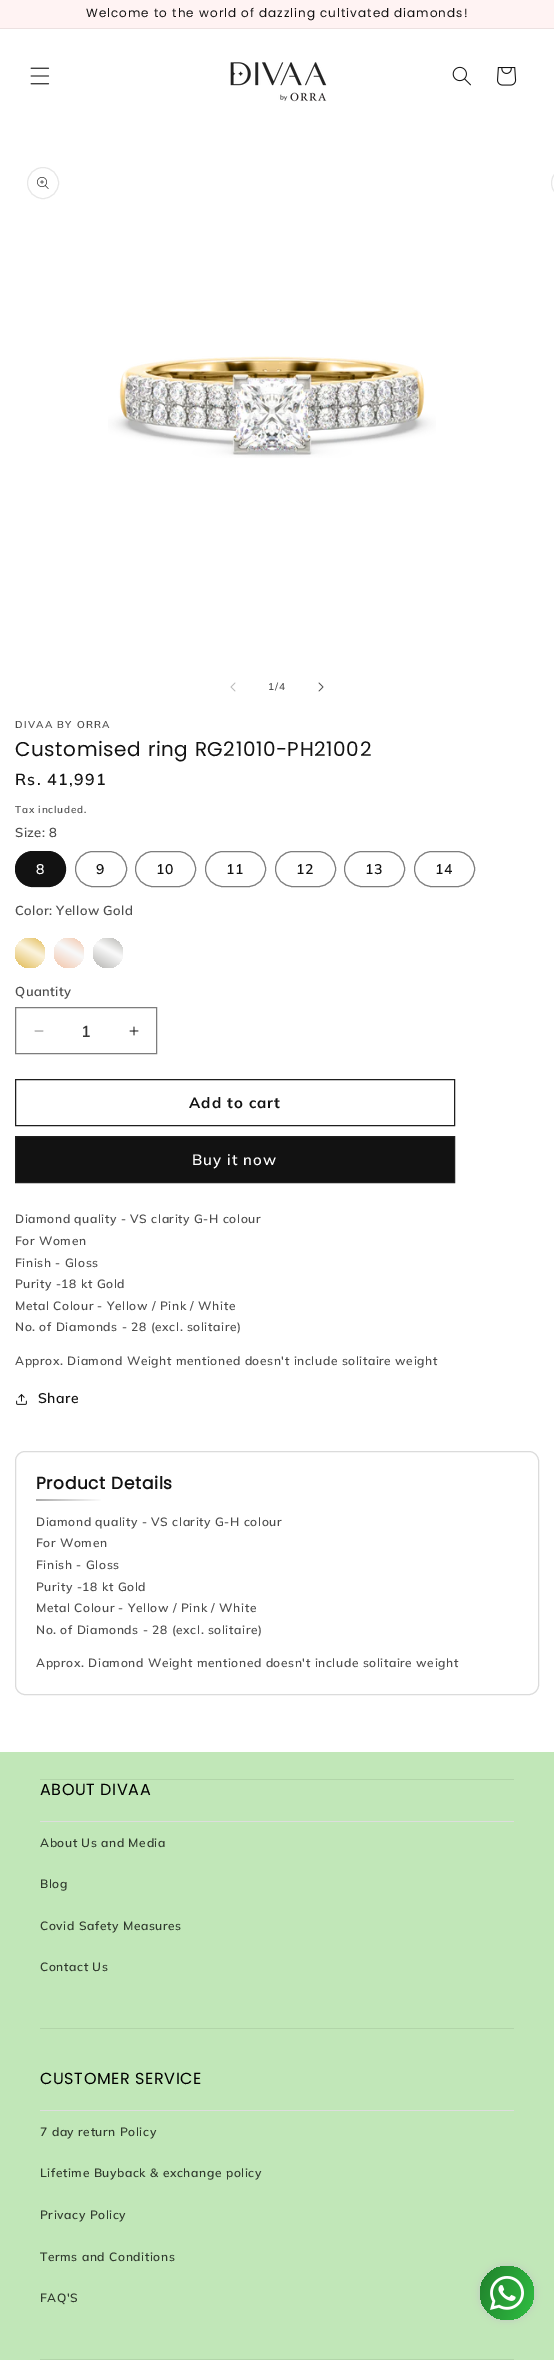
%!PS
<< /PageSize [554 2360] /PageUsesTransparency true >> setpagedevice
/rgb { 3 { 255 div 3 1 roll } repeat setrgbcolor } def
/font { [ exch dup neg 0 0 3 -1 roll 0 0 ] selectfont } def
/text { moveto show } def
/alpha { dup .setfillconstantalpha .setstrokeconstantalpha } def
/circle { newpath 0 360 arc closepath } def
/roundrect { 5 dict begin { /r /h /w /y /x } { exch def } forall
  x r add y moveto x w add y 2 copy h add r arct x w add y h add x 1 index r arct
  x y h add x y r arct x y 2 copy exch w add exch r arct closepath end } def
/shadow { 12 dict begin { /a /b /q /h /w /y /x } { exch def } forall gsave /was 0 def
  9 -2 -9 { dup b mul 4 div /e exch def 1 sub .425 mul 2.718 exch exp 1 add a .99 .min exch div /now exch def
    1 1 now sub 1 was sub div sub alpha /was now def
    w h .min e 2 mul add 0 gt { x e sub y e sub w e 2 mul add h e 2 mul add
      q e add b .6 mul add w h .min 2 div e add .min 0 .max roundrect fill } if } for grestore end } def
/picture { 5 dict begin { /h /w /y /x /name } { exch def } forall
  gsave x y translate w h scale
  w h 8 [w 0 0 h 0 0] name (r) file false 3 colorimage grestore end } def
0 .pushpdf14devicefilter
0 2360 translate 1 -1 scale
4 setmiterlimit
255 255 255 rgb
0 0 554 2360 rectfill
255 243 243 rgb
0 0 554 28 rectfill
236 225 225 rgb
0 28 554 1 rectfill
(img_01.rgb) 30 67 20 18 picture
(img_02.rgb) 230 62 97 40 picture
(img_03.rgb) 452 66 19 20 picture
(img_04.rgb) 497 67 20 19 picture
231 231 231 rgb
43 183 15.5 circle stroke
(img_05.rgb) 37 177 12 12 picture
(img_06.rgb) 108 356 328 102 picture
551.5 167.5 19 31 15.5 roundrect stroke
(img_07.rgb) 230 682 6 10 picture
(img_08.rgb) 318 682 6 10 picture
18 18 18 rgb
15 851 51 36 18 roundrect fill
0.55 alpha
15.5 851.5 50 35 17.5 roundrect stroke
1 alpha
125 125 125 rgb
75.5 851.5 51 35 17.5 roundrect stroke
135.5 851.5 60 35 17.5 roundrect stroke
205.5 851.5 60 35 17.5 roundrect stroke
275.5 851.5 60 35 17.5 roundrect stroke
344.5 851.5 60 35 17.5 roundrect stroke
414.5 851.5 60 35 17.5 roundrect stroke
gsave 30 953 15 circle clip newpath
<< /ShadingType 2 /ColorSpace /DeviceRGB /Coords [20 971 40 935] /Extend [true true] /Function << /FunctionType 3 /Domain [0 1] /Functions [<< /FunctionType 2 /Domain [0 1] /C0 [0.882 0.725 0.31] /C1 [0.98 0.945 0.847] /N 1 >> << /FunctionType 2 /Domain [0 1] /C0 [0.98 0.945 0.847] /C1 [0.98 0.945 0.847] /N 1 >> << /FunctionType 2 /Domain [0 1] /C0 [0.98 0.945 0.847] /C1 [0.882 0.725 0.31] /N 1 >>] /Bounds [0.55 0.6] /Encode [0 1 0 1 0 1] >> >> shfill grestore
gsave 69 953 15 circle clip newpath
<< /ShadingType 2 /ColorSpace /DeviceRGB /Coords [59 971 79 935] /Extend [true true] /Function << /FunctionType 3 /Domain [0 1] /Functions [<< /FunctionType 2 /Domain [0 1] /C0 [0.953 0.765 0.651] /C1 [0.969 0.969 0.969] /N 1 >> << /FunctionType 2 /Domain [0 1] /C0 [0.969 0.969 0.969] /C1 [0.969 0.969 0.969] /N 1 >> << /FunctionType 2 /Domain [0 1] /C0 [0.969 0.969 0.969] /C1 [0.953 0.765 0.651] /N 1 >>] /Bounds [0.55 0.6] /Encode [0 1 0 1 0 1] >> >> shfill grestore
gsave 108 953 15 circle clip newpath
<< /ShadingType 2 /ColorSpace /DeviceRGB /Coords [98 971 118 935] /Extend [true true] /Function << /FunctionType 3 /Domain [0 1] /Functions [<< /FunctionType 2 /Domain [0 1] /C0 [0.702 0.698 0.686] /C1 [0.969 0.969 0.969] /N 1 >> << /FunctionType 2 /Domain [0 1] /C0 [0.969 0.969 0.969] /C1 [0.969 0.969 0.969] /N 1 >> << /FunctionType 2 /Domain [0 1] /C0 [0.969 0.969 0.969] /C1 [0.702 0.698 0.686] /N 1 >>] /Bounds [0.55 0.6] /Encode [0 1 0 1 0 1] >> >> shfill grestore
(img_09.rgb) 34 1030 10 2 picture
(img_10.rgb) 129 1026 10 10 picture
15.5 1007.5 141 46 rectstroke
30 30 30 rgb
15.5 1079.5 439 46 rectstroke
18 18 18 rgb
16 1137 438 45 rectfill
30 30 30 rgb
15.5 1136.5 439 46 rectstroke
(img_11.rgb) 16 1394 11 11 picture
219 219 219 rgb
15.5 1451.5 523 243 9.5 roundrect stroke
gsave 36 1499 moveto 65 0 rlineto 0 2 rlineto -65 0 rlineto closepath clip newpath
<< /ShadingType 2 /ColorSpace /DeviceRGB /Coords [36 1500 132 1500] /Extend [true true] /Function << /FunctionType 3 /Domain [0 1] /Functions [<< /FunctionType 2 /Domain [0 1] /C0 [0.667 0.667 0.667] /C1 [1 1 1] /N 1 >> << /FunctionType 2 /Domain [0 1] /C0 [1 1 1] /C1 [1 1 1] /N 1 >>] /Bounds [0.7] /Encode [0 1 0 1] >> >> shfill grestore
193 231 184 rgb
0 1752 554 608 rectfill
178 213 169 rgb
40 1779 474 1 rectfill
40 2028 474 1 rectfill
221 221 221 rgb
40 1821 474 1 rectfill
178 213 169 rgb
40 2359 474 1 rectfill
221 221 221 rgb
40 2110 474 1 rectfill
194 194 194 rgb
480 2266 54 54 27 4 1 shadow
gsave 507 2293 27 circle clip newpath
<< /ShadingType 2 /ColorSpace /DeviceRGB /Coords [474 2280 540 2306] /Extend [true true] /Function << /FunctionType 2 /Domain [0 1] /C0 [0.125 0.502 0.173] /C1 [0.188 0.749 0.259] /N 1 >> >> shfill grestore
(img_12.rgb) 490 2276 34 34 picture
/Poppins-Regular 12 font
18 18 18 rgb
86 17 moveto 1 0 (Welcome to the world of dazzling cultivated diamonds!) ashow
/Muli-SemiBold 10 font
77 77 77 rgb
268 690 moveto 0.75 0 (1/4) ashow
15 728 moveto 1.25 0 (DIVAA BY ORRA) ashow
/Poppins-Regular 20 font
18 18 18 rgb
15 756 moveto 0.6 0 (Customised ring RG21010-PH21002) ashow
/Muli-SemiBold 16 font
15 785 moveto 1.25 0 (Rs. 41,991) ashow
/Muli-SemiBold 10 font
77 77 77 rgb
15 813 moveto 0.75 0 (Tax included.) ashow
/Muli-SemiBold 13 font
15 837 moveto 0.4 0 (Size: 8) ashow
/Muli-SemiBold 14 font
255 255 255 rgb
36 874 moveto 1 0 (8) ashow
18 18 18 rgb
96 874 moveto 1 0 (9) ashow
156 874 moveto 1 0 (10) ashow
226 874 moveto 1 0 (11) ashow
296 874 moveto 1 0 (12) ashow
365 874 moveto 1 0 (13) ashow
435 874 moveto 1 0 (14) ashow
/Muli-SemiBold 13 font
77 77 77 rgb
15 915 moveto 0.4 0 (Color: Yellow Gold) ashow
15 996 moveto 0.4 0 (Quantity) ashow
/Muli-SemiBold 16 font
54 54 54 rgb
(1) 81 1037 text
/Muli-Bold 15 font
18 18 18 rgb
189 1108 moveto 1 0 (Add to cart) ashow
/Muli-SemiBold 15 font
255 255 255 rgb
192 1165 moveto 1 0 (Buy it now) ashow
/Muli-SemiBold 12 font
77 77 77 rgb
15 1223 moveto 0.6 0 (Diamond quality - VS clarity G-H colour) ashow
15 1245 moveto 0.6 0 (For Women) ashow
15 1267 moveto 0.6 0 (Finish - Gloss) ashow
15 1288 moveto 0.6 0 (Purity -18 kt Gold) ashow
15 1310 moveto 0.6 0 (Metal Colour - Yellow / Pink / White) ashow
15 1331 moveto 0.6 0 (No. of Diamonds - 28 \(excl. solitaire\)) ashow
15 1365 moveto 0.6 0 (Approx. Diamond Weight mentioned doesn't include solitaire weight) ashow
/Muli-SemiBold 14 font
18 18 18 rgb
38 1403 moveto 0.6 0 (Share) ashow
/Poppins-Bold 17 font
36 1489 moveto 0.6 0 (Product Details) ashow
/Muli-SemiBold 12 font
77 77 77 rgb
36 1526 moveto 0.6 0 (Diamond quality - VS clarity G-H colour) ashow
36 1547 moveto 0.6 0 (For Women) ashow
36 1569 moveto 0.6 0 (Finish - Gloss) ashow
36 1591 moveto 0.6 0 (Purity -18 kt Gold) ashow
36 1612 moveto 0.6 0 (Metal Colour - Yellow / Pink / White) ashow
36 1634 moveto 0.6 0 (No. of Diamonds - 28 \(excl. solitaire\)) ashow
36 1667 moveto 0.6 0 (Approx. Diamond Weight mentioned doesn't include solitaire weight) ashow
/Poppins-Regular 16 font
0 0 0 rgb
40 1795 moveto 0.6 0 (ABOUT DIVAA) ashow
/Muli-SemiBold 12 font
48 58 46 rgb
40 1847 moveto 0.6 0 (About Us and Media) ashow
40 1888 moveto 0.6 0 (Blog) ashow
40 1930 moveto 0.6 0 (Covid Safety Measures) ashow
40 1971 moveto 0.6 0 (Contact Us) ashow
/Poppins-Regular 16 font
0 0 0 rgb
40 2084 moveto 0.6 0 (CUSTOMER SERVICE) ashow
/Muli-SemiBold 12 font
48 58 46 rgb
40 2136 moveto 0.6 0 (7 day return Policy) ashow
40 2177 moveto 0.6 0 (Lifetime Buyback & exchange policy) ashow
40 2219 moveto 0.6 0 (Privacy Policy) ashow
40 2261 moveto 0.6 0 (Terms and Conditions) ashow
40 2302 moveto 0.6 0 (FAQ'S) ashow
.poppdf14devicefilter showpage
